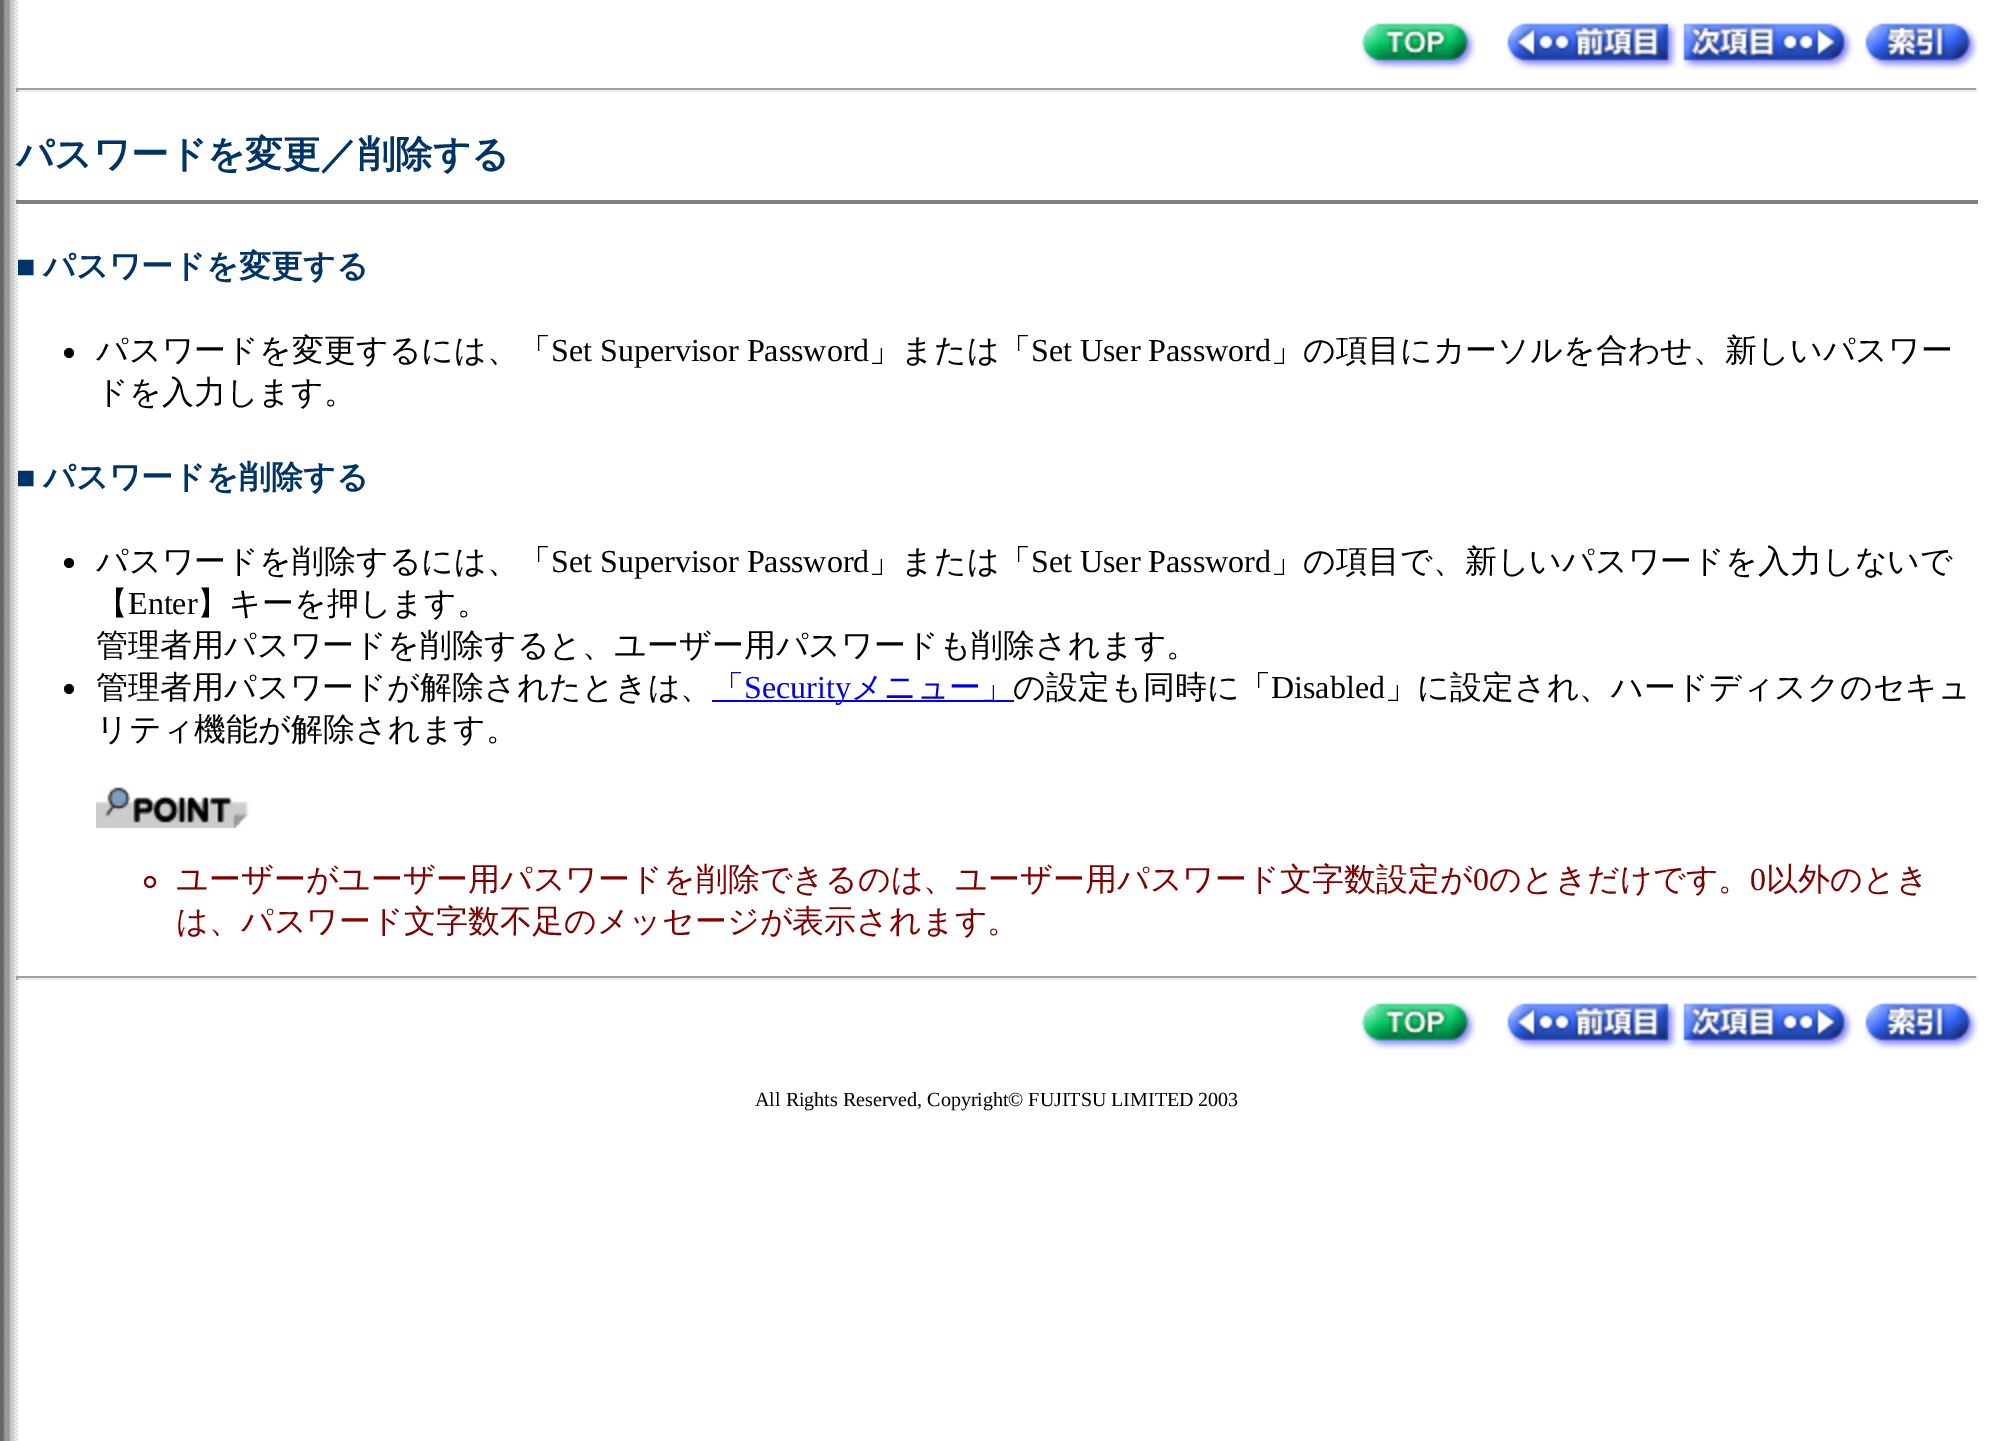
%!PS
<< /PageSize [1994 1441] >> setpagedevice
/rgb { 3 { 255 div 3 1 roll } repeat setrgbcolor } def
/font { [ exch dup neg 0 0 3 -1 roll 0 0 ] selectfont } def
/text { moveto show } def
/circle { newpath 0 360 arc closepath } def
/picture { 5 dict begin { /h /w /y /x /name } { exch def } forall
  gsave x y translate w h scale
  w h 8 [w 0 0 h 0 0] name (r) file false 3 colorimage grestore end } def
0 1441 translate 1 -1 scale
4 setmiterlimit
255 255 255 rgb
0 0 1994 1441 rectfill
(img_01.rgb) 0 0 19 1441 picture
(img_02.rgb) 1361 22 115 48 picture
(img_03.rgb) 1506 22 170 48 picture
(img_04.rgb) 1676 22 178 48 picture
(img_05.rgb) 1864 22 114 48 picture
159 159 159 rgb
16 88 1962 2 rectfill
238 238 238 rgb
1976 88 2 4 rectfill
16 90 1962 2 rectfill
159 159 159 rgb
16 88 2 4 rectfill
128 128 128 rgb
16 200 1962 4 rectfill
0 0 0 rgb
69 353 5 circle fill
69 563 5 circle fill
69 689 5 circle fill
0 0 238 rgb
712 700 302 2 rectfill
(img_06.rgb) 96 787 153 41 picture
128 0 0 rgb
2 setlinewidth
150 882 5 circle stroke
159 159 159 rgb
16 976 1962 2 rectfill
238 238 238 rgb
1976 976 2 4 rectfill
16 978 1962 2 rectfill
159 159 159 rgb
16 976 2 4 rectfill
(img_02.rgb) 1361 1002 115 48 picture
(img_03.rgb) 1506 1002 170 48 picture
(img_04.rgb) 1676 1002 178 48 picture
(img_05.rgb) 1864 1002 114 48 picture
/WenQuanYiZenHei-Bold 37.5 font
0 51 102 rgb
(パスワードを変更／削除する) 16 167 text
/LiberationSerif-Bold 32 font
(■) 16 277 text
/WenQuanYiZenHei-Bold 32 font
(パスワードを変更する) 43 277 text
/WenQuanYiZenHei-Medium 32 font
0 0 0 rgb
(パスワードを変更するには、「) 96 361 text
/LiberationSerif-Regular 32 font
(Set Supervisor Password) 551 361 text
/WenQuanYiZenHei-Medium 32 font
(」または「) 869 361 text
/LiberationSerif-Regular 32 font
(Set User Password) 1031 361 text
/WenQuanYiZenHei-Medium 32 font
(」の項目にカーソルを合わせ、新しいパスワー) 1271 361 text
(ドを入力します。) 96 403 text
/LiberationSerif-Bold 32 font
0 51 102 rgb
(■) 16 488 text
/WenQuanYiZenHei-Bold 32 font
(パスワードを削除する) 43 488 text
/WenQuanYiZenHei-Medium 32 font
0 0 0 rgb
(パスワードを削除するには、「) 96 572 text
/LiberationSerif-Regular 32 font
(Set Supervisor Password) 551 572 text
/WenQuanYiZenHei-Medium 32 font
(」または「) 869 572 text
/LiberationSerif-Regular 32 font
(Set User Password) 1031 572 text
/WenQuanYiZenHei-Medium 32 font
(」の項目で、新しいパスワードを入力しないで) 1271 572 text
(【) 96 614 text
/LiberationSerif-Regular 32 font
(Enter) 128 614 text
/WenQuanYiZenHei-Medium 32 font
(】キーを押します。) 197 614 text
(管理者用パスワードを削除すると、ユーザー用パスワードも削除されます。) 96 656 text
(管理者用パスワードが解除されたときは、) 96 698 text
0 0 238 rgb
(「) 712 698 text
/LiberationSerif-Regular 32 font
(Security) 744 698 text
/WenQuanYiZenHei-Medium 32 font
(メニュー」) 851 698 text
0 0 0 rgb
(の設定も同時に「) 1013 698 text
/LiberationSerif-Regular 32 font
(Disabled) 1271 698 text
/WenQuanYiZenHei-Medium 32 font
(」に設定され、ハードディスクのセキュ) 1385 698 text
(リティ機能が解除されます。) 96 740 text
128 0 0 rgb
(ユーザーがユーザー用パスワードを削除できるのは、ユーザー用パスワード文字数設定が) 176 890 text
/LiberationSerif-Regular 32 font
(0) 1473 890 text
/WenQuanYiZenHei-Medium 32 font
(のときだけです。) 1489 890 text
/LiberationSerif-Regular 32 font
(0) 1750 890 text
/WenQuanYiZenHei-Medium 32 font
(以外のとき) 1766 890 text
(は、パスワード文字数不足のメッセージが表示されます。) 176 932 text
/LiberationSerif-Regular 20 font
0 0 0 rgb
(All Rights Reserved, Copyright© FUJITSU LIMITED 2003) 755 1106 text
showpage
